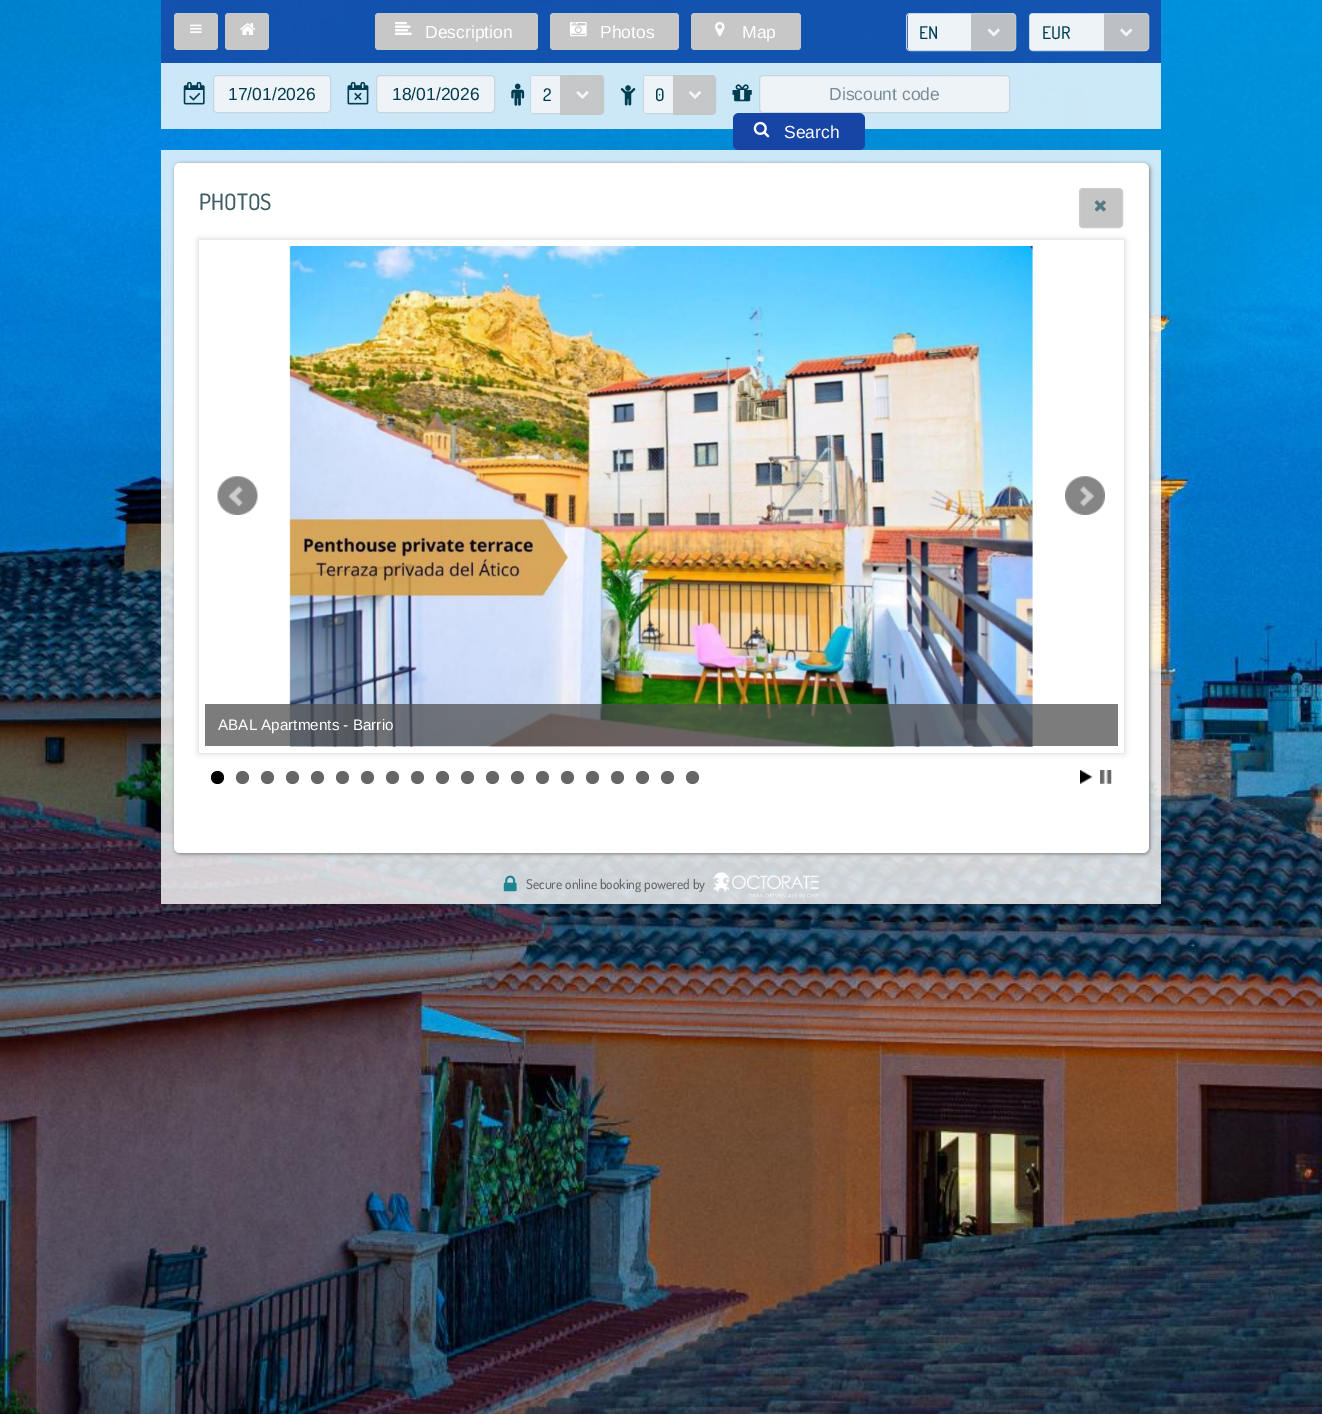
%!PS
<< /PageSize [1322 1414] /PageUsesTransparency true >> setpagedevice
/rgb { 3 { 255 div 3 1 roll } repeat setrgbcolor } def
/font { [ exch dup neg 0 0 3 -1 roll 0 0 ] selectfont } def
/text { moveto show } def
/alpha { dup .setfillconstantalpha .setstrokeconstantalpha } def
/circle { newpath 0 360 arc closepath } def
/roundrect { 5 dict begin { /r /h /w /y /x } { exch def } forall
  x r add y moveto x w add y 2 copy h add r arct x w add y h add x 1 index r arct
  x y h add x y r arct x y 2 copy exch w add exch r arct closepath end } def
/shadow { 12 dict begin { /a /b /q /h /w /y /x } { exch def } forall gsave /was 0 def
  9 -2 -9 { dup b mul 4 div /e exch def 1 sub .425 mul 2.718 exch exp 1 add a .99 .min exch div /now exch def
    1 1 now sub 1 was sub div sub alpha /was now def
    w h .min e 2 mul add 0 gt { x e sub y e sub w e 2 mul add h e 2 mul add
      q e add b .6 mul add w h .min 2 div e add .min 0 .max roundrect fill } if } for grestore end } def
/picture { 5 dict begin { /h /w /y /x /name } { exch def } forall
  gsave x y translate w h scale
  w h 8 [w 0 0 h 0 0] name (r) file false 3 colorimage grestore end } def
0 .pushpdf14devicefilter
0 1414 translate 1 -1 scale
4 setmiterlimit
255 255 255 rgb
0 0 1322 1414 rectfill
(img_01.rgb) 0 0 1322 1414 picture
0.8 alpha
23 69 166 rgb
161 0 1000 63 rectfill
1 alpha
239 239 239 rgb
174 13 44 37 4 roundrect fill
0.95 alpha
197 197 197 rgb
174 13 44 37 4 roundrect fill
1 alpha
(img_02.rgb) 190 24 12 9 picture
239 239 239 rgb
225 13 44 37 4 roundrect fill
0.95 alpha
197 197 197 rgb
225 13 44 37 4 roundrect fill
1 alpha
(img_03.rgb) 240 23 16 12 picture
239 239 239 rgb
375 13 163 37 4 roundrect fill
0.95 alpha
197 197 197 rgb
375 13 163 37 4 roundrect fill
1 alpha
(img_04.rgb) 395 22 17 13 picture
239 239 239 rgb
550 13 129 37 4 roundrect fill
0.95 alpha
197 197 197 rgb
550 13 129 37 4 roundrect fill
1 alpha
(img_05.rgb) 570 22 17 15 picture
239 239 239 rgb
691 13 110 37 4 roundrect fill
0.95 alpha
197 197 197 rgb
691 13 110 37 4 roundrect fill
1 alpha
(img_06.rgb) 715 22 10 15 picture
198 214 223 rgb
906.5 13.5 109 37 3.5 roundrect stroke
237 243 246 rgb
910.5 14 moveto 60.5 0 rlineto 0 36 rlineto -60.5 0 rlineto -1.5 0 -2.5 -1 -2.5 -2.5 rcurveto 0 -31 rlineto 0 -1.5 1 -2.5 2.5 -2.5 rcurveto closepath fill
0.95 alpha
197 197 197 rgb
971 13 moveto 41 0 rlineto 2 0 4 2 4 4 rcurveto 0 30 rlineto 0 2 -2 4 -4 4 rcurveto -41 0 rlineto closepath fill
1 alpha
(img_07.rgb) 987 28 13 9 picture
198 214 223 rgb
1029.5 13.5 119 37 3.5 roundrect stroke
237 243 246 rgb
1032.5 14 moveto 71.5 0 rlineto 0 36 rlineto -71.5 0 rlineto -1.5 0 -2.5 -1 -2.5 -2.5 rcurveto 0 -31 rlineto 0 -1.5 1 -2.5 2.5 -2.5 rcurveto closepath fill
0.95 alpha
197 197 197 rgb
1104 13 moveto 41 0 rlineto 2 0 4 2 4 4 rcurveto 0 30 rlineto 0 2 -2 4 -4 4 rcurveto -41 0 rlineto closepath fill
1 alpha
(img_08.rgb) 1120 28 13 9 picture
0.8 alpha
255 255 255 rgb
161 63 1000 66 rectfill
1 alpha
(img_09.rgb) 183 81 22 24 picture
237 243 246 rgb
213.5 75.5 117 37 3.5 roundrect gsave fill grestore
198 214 223 rgb
stroke
(img_10.rgb) 347 81 22 24 picture
237 243 246 rgb
376.5 75.5 118 37 3.5 roundrect gsave fill grestore
198 214 223 rgb
stroke
(img_11.rgb) 511 83 14 23 picture
530.5 75.5 73 38 3.5 roundrect stroke
237 243 246 rgb
533.5 76 moveto 29.5 0 rlineto 0 37 rlineto -29.5 0 rlineto -1.5 0 -2.5 -1 -2.5 -2.5 rcurveto 0 -32 rlineto 0 -1.5 1 -2.5 2.5 -2.5 rcurveto closepath fill
0.95 alpha
197 197 197 rgb
560 75 moveto 40 0 rlineto 2 0 4 2 4 4 rcurveto 0 32 rlineto 0 2 -2 4 -4 4 rcurveto -40 0 rlineto closepath fill
1 alpha
(img_12.rgb) 576 91 13 8 picture
(img_13.rgb) 620 85 16 21 picture
198 214 223 rgb
643.5 75.5 72 38 3.5 roundrect stroke
237 243 246 rgb
646.5 76 moveto 28.5 0 rlineto 0 37 rlineto -28.5 0 rlineto -1.5 0 -2.5 -1 -2.5 -2.5 rcurveto 0 -32 rlineto 0 -1.5 1 -2.5 2.5 -2.5 rcurveto closepath fill
0.95 alpha
197 197 197 rgb
673 75 moveto 39 0 rlineto 2 0 4 2 4 4 rcurveto 0 32 rlineto 0 2 -2 4 -4 4 rcurveto -39 0 rlineto closepath fill
1 alpha
(img_14.rgb) 689 91 12 8 picture
(img_15.rgb) 732 84 20 18 picture
237 243 246 rgb
759.5 75.5 250 37 3.5 roundrect gsave fill grestore
198 214 223 rgb
stroke
23 69 166 rgb
733 113 132 37 6 roundrect fill
(img_16.rgb) 753 121 17 17 picture
0.8 alpha
255 255 255 rgb
161 150 1000 715 rectfill
1 alpha
119 119 119 rgb
175 164 975 690 6 2 1 shadow
255 255 255 rgb
174 163 975 690 6 roundrect fill
197 197 197 rgb
1079.5 188.5 43 39 3.5 roundrect gsave fill grestore
204 204 204 rgb
stroke
(img_17.rgb) 1094 200 12 12 picture
199 240 925 513 0 3 1 shadow
255 255 255 rgb
199 240 925 513 rectfill
(img_18.rgb) 217 476 41 39 picture
(img_19.rgb) 1065 476 40 39 picture
0 0 0 rgb
217.5 777.5 6.5 circle fill
102 102 102 rgb
242.5 777.5 6.5 circle fill
267.5 777.5 6.5 circle fill
292.5 777.5 6.5 circle fill
317.5 777.5 6.5 circle fill
342.5 777.5 6.5 circle fill
367.5 777.5 6.5 circle fill
392.5 777.5 6.5 circle fill
417.5 777.5 6.5 circle fill
442.5 777.5 6.5 circle fill
467.5 777.5 6.5 circle fill
492.5 777.5 6.5 circle fill
517.5 777.5 6.5 circle fill
542.5 777.5 6.5 circle fill
567.5 777.5 6.5 circle fill
592.5 777.5 6.5 circle fill
617.5 777.5 6.5 circle fill
642.5 777.5 6.5 circle fill
667.5 777.5 6.5 circle fill
692.5 777.5 6.5 circle fill
(img_20.rgb) 1080 770 13 14 picture
(img_21.rgb) 1100 770 12 14 picture
(img_22.rgb) 289 246 744 501 picture
0.75 alpha
80 80 80 rgb
205 704 913 42 rectfill
0.8 alpha
255 255 255 rgb
161 865 1000 39 rectfill
1 alpha
(img_23.rgb) 503 875 14 17 picture
(img_24.rgb) 713 872 106 26 picture
/LiberationSans-Regular 17.5 font
(Description) 425 38 text
(Photos) 600 38 text
(Map) 742 38 text
/Dosis-Medium 17.5 font
0 61 80 rgb
(EN) 919 39 text
(EUR) 1042 39 text
/LiberationSans-Regular 17.5 font
(17/01/2026) 228 100 text
(18/01/2026) 392 100 text
/Dosis-Medium 17.5 font
(2) 543 101 text
(0) 655 101 text
/LiberationSans-Regular 17.5 font
119 141 155 rgb
(Discount code) 829 100 text
255 255 255 rgb
(Search) 784 138 text
/Dosis-Medium 22.5 font
62 94 102 rgb
(PHOTOS) 199 210 text
/LiberationSans-Regular 15.25 font
255 255 255 rgb
(ABAL Apartments - Barrio) 218 730 text
/Dosis-Medium 13.5 font
102 102 102 rgb
(Secure online booking powered by) 526 889 text
.poppdf14devicefilter showpage
